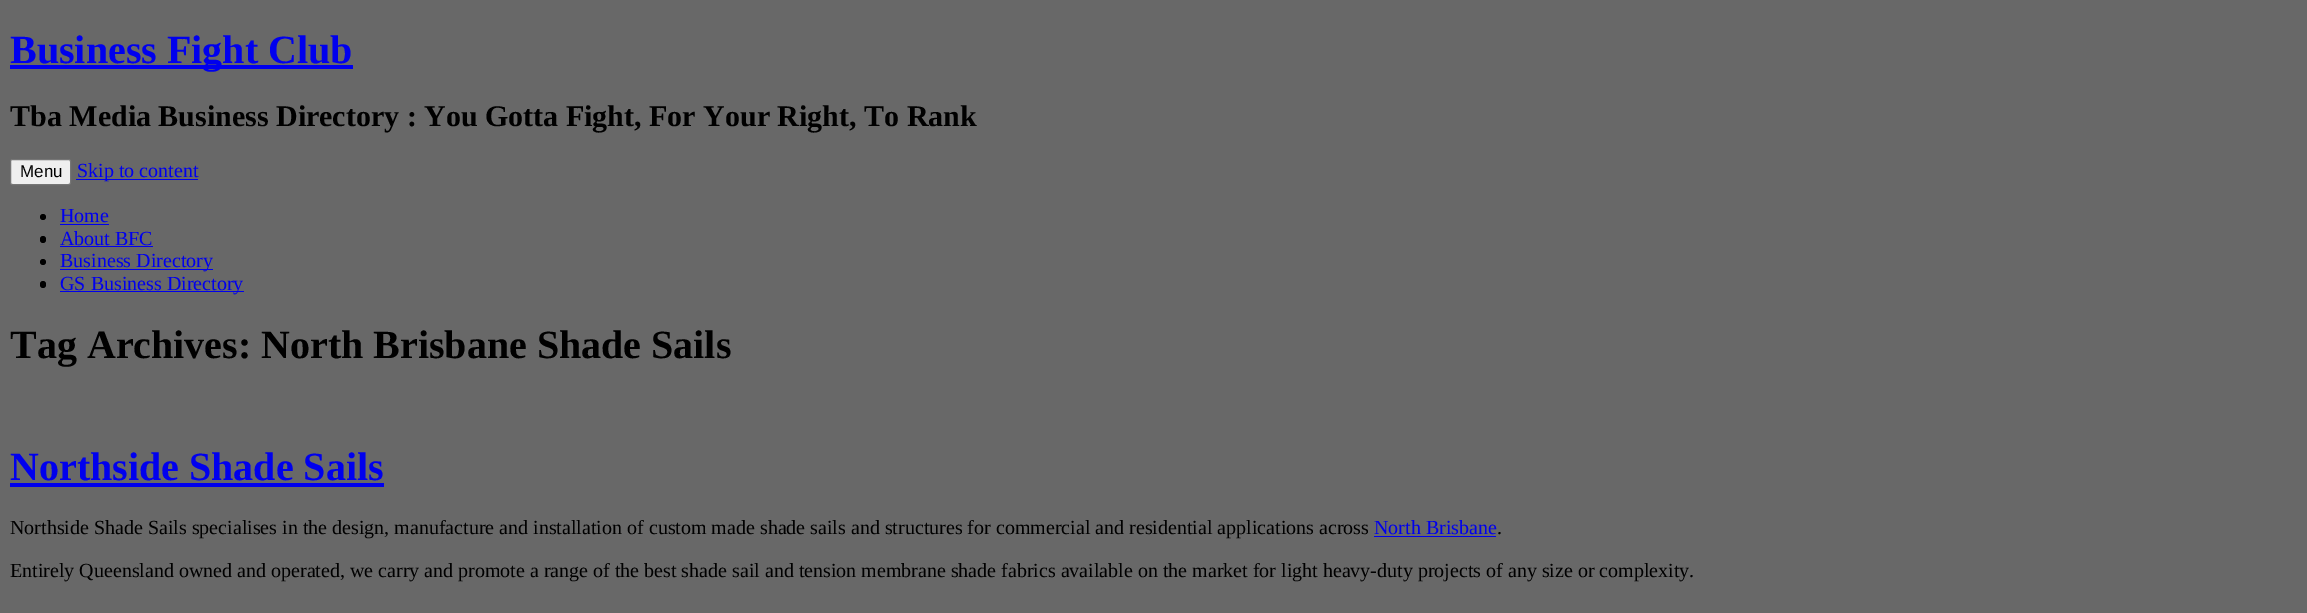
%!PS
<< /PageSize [2307 613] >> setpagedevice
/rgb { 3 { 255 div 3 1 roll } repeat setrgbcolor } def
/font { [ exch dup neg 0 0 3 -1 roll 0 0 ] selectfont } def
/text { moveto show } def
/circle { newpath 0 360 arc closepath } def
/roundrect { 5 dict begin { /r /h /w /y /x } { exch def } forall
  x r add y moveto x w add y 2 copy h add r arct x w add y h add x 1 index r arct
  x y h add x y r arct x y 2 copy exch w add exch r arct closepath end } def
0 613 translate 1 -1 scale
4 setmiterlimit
104 104 104 rgb
0 0 2307 613 rectfill
0 0 238 rgb
10 65 343 4 rectfill
239 239 239 rgb
10.5 159.5 60 25 2 roundrect gsave fill grestore
118 118 118 rgb
stroke
0 0 238 rgb
76 179 122 1 rectfill
0 0 0 rgb
43 217 3 circle fill
0 0 238 rgb
60 224 49 1 rectfill
0 0 0 rgb
40 236 6 7 3 roundrect fill
0 0 238 rgb
60 246 93 1 rectfill
0 0 0 rgb
43 262 3 circle fill
0 0 238 rgb
60 269 153 1 rectfill
0 0 0 rgb
40 281 6 7 3 roundrect fill
0 0 238 rgb
60 291 184 1 rectfill
10 483 374 4 rectfill
1374 536 122 1 rectfill
/LiberationSerif-Bold 40 font
(Business Fight Club) 10 63 text
/LiberationSerif-Bold 30 font
0 0 0 rgb
(Tba Media Business Directory : You Gotta Fight, For Your Right, To Rank) 10 126 text
/LiberationSans-Regular 17 font
(Menu) 20 177 text
/LiberationSerif-Regular 20 font
0 0 238 rgb
(Skip to content) 77 177 text
(Home) 60 222 text
(About BFC) 60 245 text
(Business Directory) 60 267 text
(GS Business Directory) 60 290 text
/LiberationSerif-Bold 40 font
0 0 0 rgb
(Tag Archives: North Brisbane Shade Sails) 10 358 text
0 0 238 rgb
(Northside Shade Sails) 10 480 text
/LiberationSerif-Regular 20 font
0 0 0 rgb
(Northside Shade Sails specialises in the design, manufacture and installation of custom made shade sails and structures for commercial and residential applications across) 10 534 text
0 0 238 rgb
(North Brisbane) 1374 534 text
0 0 0 rgb
(.) 1497 534 text
(Entirely Queensland owned and operated, we carry and promote a range of the best shade sail and tension membrane shade fabrics available on the market for light heavy-duty projects of any size or complexity.) 10 577 text
showpage
